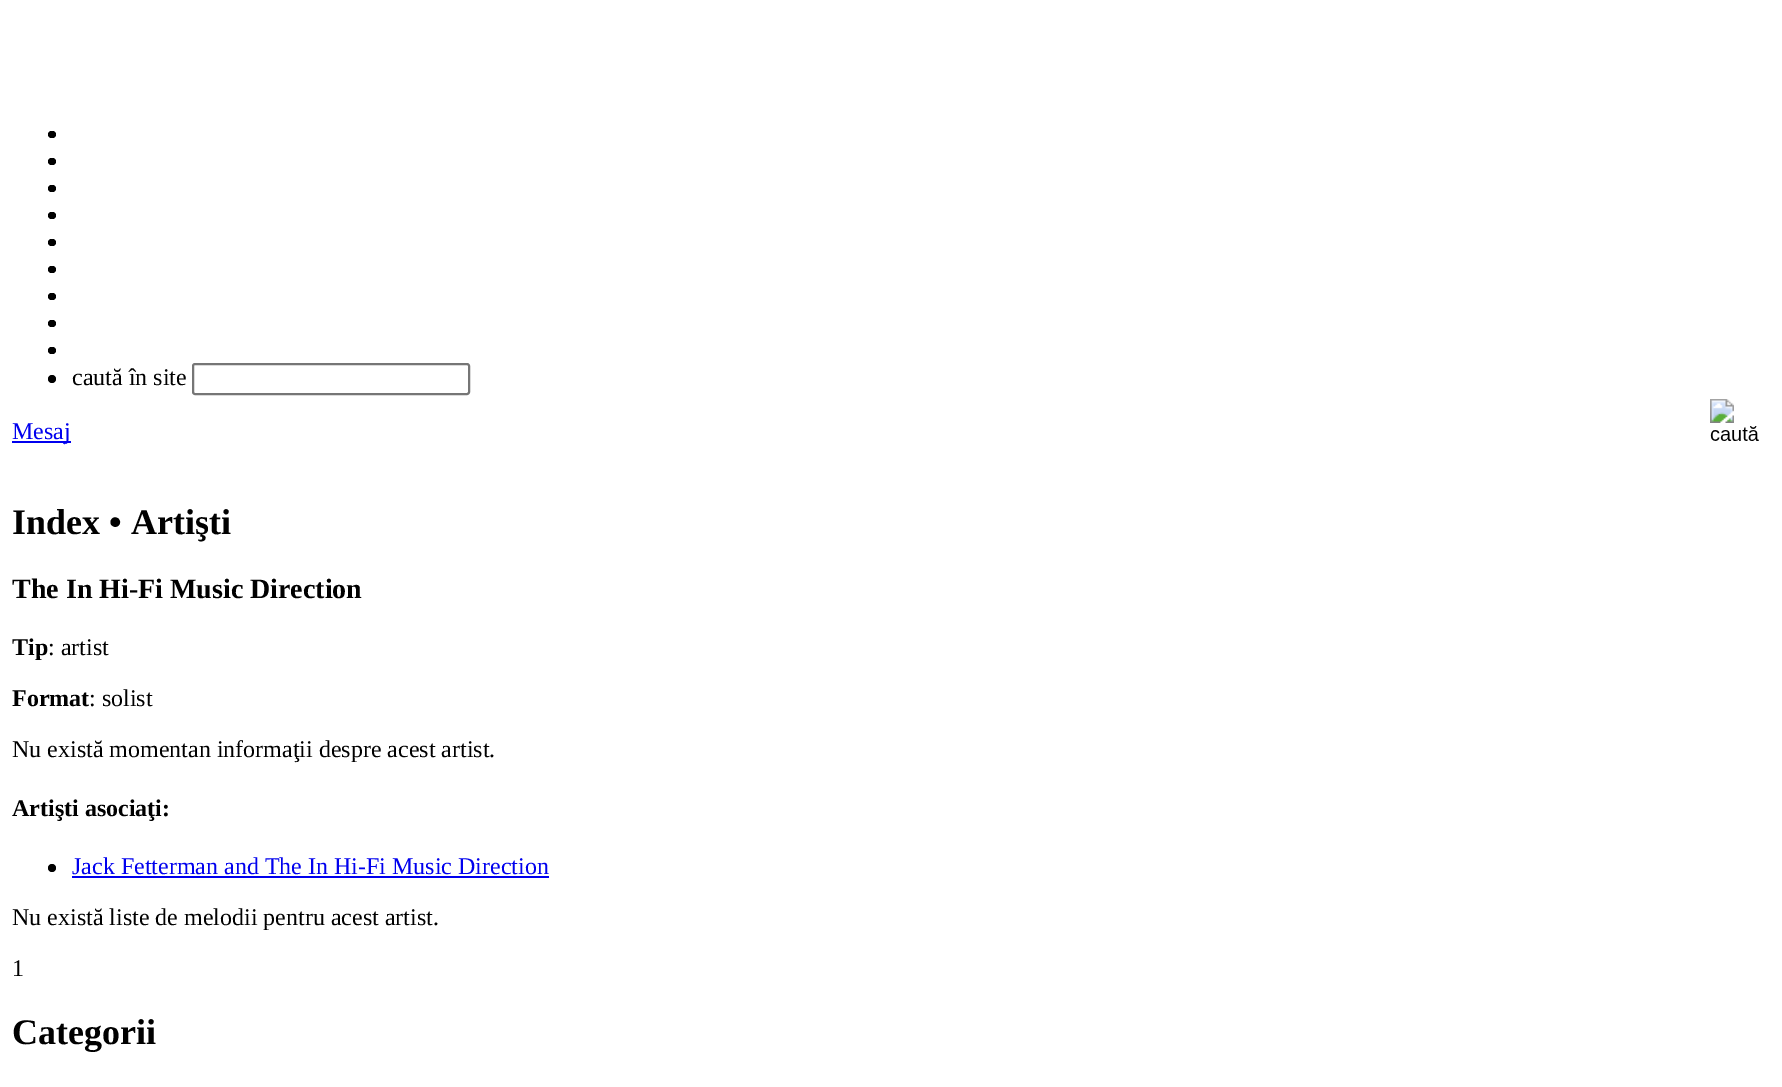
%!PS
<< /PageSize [1782 1087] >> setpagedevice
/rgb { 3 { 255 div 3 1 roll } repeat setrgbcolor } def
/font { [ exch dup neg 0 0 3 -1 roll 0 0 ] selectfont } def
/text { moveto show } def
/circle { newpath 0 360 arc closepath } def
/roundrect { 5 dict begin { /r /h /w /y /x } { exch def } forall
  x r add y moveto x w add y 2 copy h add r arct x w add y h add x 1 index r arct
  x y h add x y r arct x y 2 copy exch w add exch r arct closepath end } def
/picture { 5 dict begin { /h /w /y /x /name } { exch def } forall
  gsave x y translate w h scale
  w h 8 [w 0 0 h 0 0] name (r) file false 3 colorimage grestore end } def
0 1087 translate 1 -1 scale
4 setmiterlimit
255 255 255 rgb
0 0 1782 1087 rectfill
0 0 0 rgb
48 131 8 7 3.5 roundrect fill
48 158 8 7 3.5 roundrect fill
48 185 8 7 3.5 roundrect fill
48 212 8 7 3.5 roundrect fill
48 239 8 7 3.5 roundrect fill
48 266 8 7 3.5 roundrect fill
48 293 8 7 3.5 roundrect fill
48 320 8 7 3.5 roundrect fill
48 347 8 7 3.5 roundrect fill
52 379 4 circle fill
118 118 118 rgb
2 setlinewidth
193 364 276 30 2 roundrect stroke
(img_01.rgb) 1710 399 49 42 picture
0 0 238 rgb
12 441 59 2 rectfill
0 0 0 rgb
52 868 4 circle fill
0 0 238 rgb
72 876 477 2 rectfill
/LiberationSerif-Regular 24 font
0 0 0 rgb
(caută în site) 72 385 text
0 0 238 rgb
(Mesaj) 12 439 text
/LiberationSerif-Bold 36 font
0 0 0 rgb
(Index • Artişti) 12 534 text
/LiberationSerif-Bold 28 font
(The In Hi-Fi Music Direction) 12 598 text
/LiberationSerif-Bold 24 font
(Tip) 12 655 text
/LiberationSerif-Regular 24 font
(: artist) 48 655 text
/LiberationSerif-Bold 24 font
(Format) 12 706 text
/LiberationSerif-Regular 24 font
(: solist) 89 706 text
(Nu există momentan informaţii despre acest artist.) 12 757 text
/LiberationSerif-Bold 24 font
(Artişti asociaţi:) 12 816 text
/LiberationSerif-Regular 24 font
0 0 238 rgb
(Jack Fetterman and The In Hi-Fi Music Direction) 72 874 text
0 0 0 rgb
(Nu există liste de melodii pentru acest artist.) 12 925 text
(1) 12 976 text
/LiberationSerif-Bold 36 font
(Categorii) 12 1044 text
showpage
